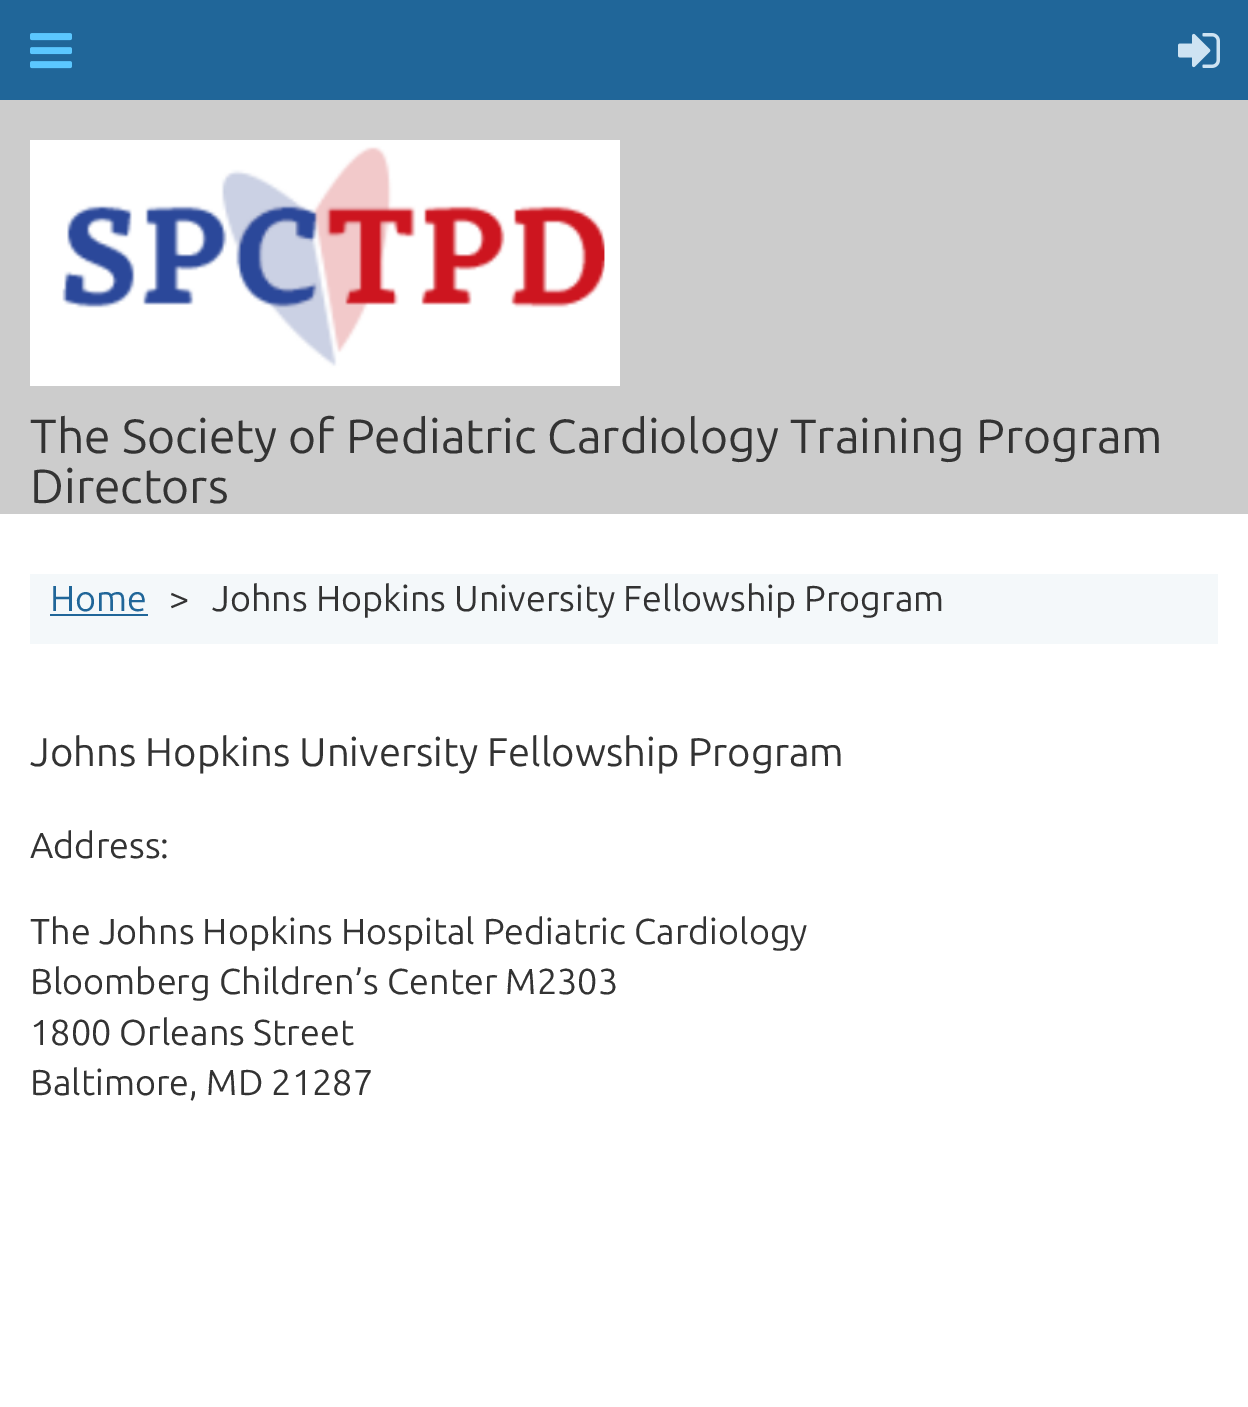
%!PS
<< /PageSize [1248 1407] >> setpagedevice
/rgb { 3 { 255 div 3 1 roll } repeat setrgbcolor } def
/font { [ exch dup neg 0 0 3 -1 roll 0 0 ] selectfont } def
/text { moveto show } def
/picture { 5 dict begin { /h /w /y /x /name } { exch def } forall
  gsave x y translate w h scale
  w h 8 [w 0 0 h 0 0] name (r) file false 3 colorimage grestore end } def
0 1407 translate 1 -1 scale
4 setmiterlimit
255 255 255 rgb
0 0 1248 1407 rectfill
32 102 153 rgb
0 0 1248 100 rectfill
(img_01.rgb) 30 33 42 36 picture
(img_02.rgb) 1178 33 42 35 picture
204 204 204 rgb
0 100 1248 414 rectfill
(img_03.rgb) 30 140 590 246 picture
244 248 250 rgb
30 574 1188 70 rectfill
32 102 153 rgb
50 614 98 2 rectfill
/Ubuntu-Regular 48 font
51 51 51 rgb
(The Society of Pediatric Cardiology Training Program) 30 453 text
(Directors) 30 503 text
/Ubuntu-Regular 36 font
32 102 153 rgb
(Home) 50 611 text
51 51 51 rgb
(>) 169 611 text
(Johns Hopkins University Fellowship Program) 212 611 text
/Ubuntu-Regular 40 font
(Johns Hopkins University Fellowship Program) 30 766 text
/Ubuntu-Regular 36 font
(Address:) 30 858 text
(The Johns Hopkins Hospital Pediatric Cardiology) 30 944 text
(Bloomberg Children’s Center M2303) 30 994 text
(1800 Orleans Street) 30 1045 text
(Baltimore, MD 21287) 30 1095 text
showpage
